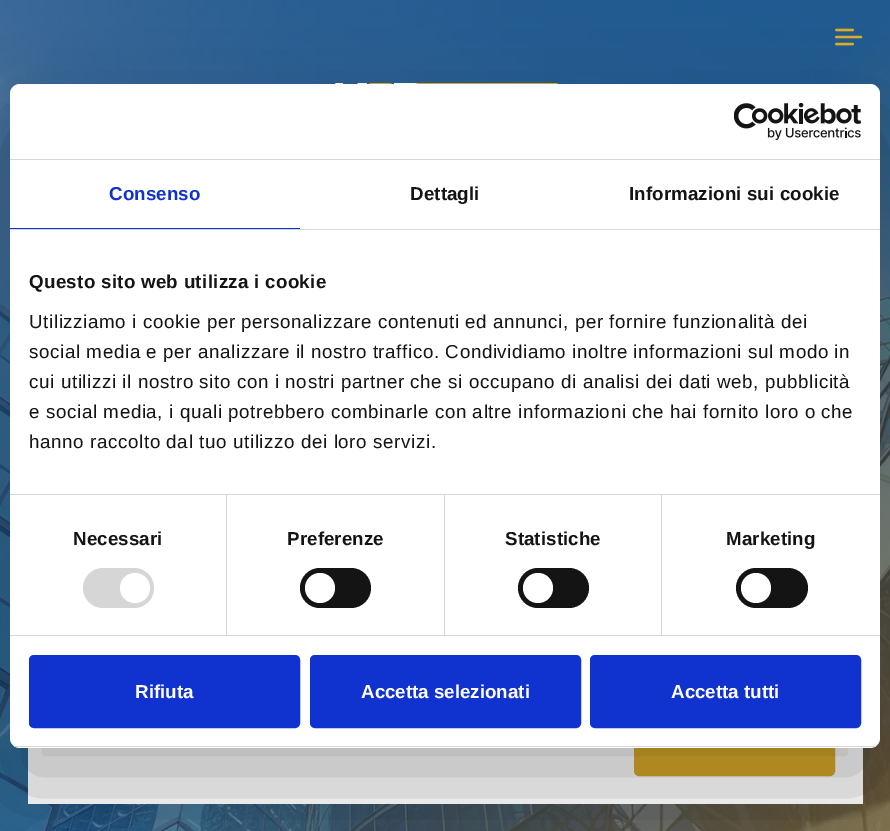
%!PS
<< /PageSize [890 831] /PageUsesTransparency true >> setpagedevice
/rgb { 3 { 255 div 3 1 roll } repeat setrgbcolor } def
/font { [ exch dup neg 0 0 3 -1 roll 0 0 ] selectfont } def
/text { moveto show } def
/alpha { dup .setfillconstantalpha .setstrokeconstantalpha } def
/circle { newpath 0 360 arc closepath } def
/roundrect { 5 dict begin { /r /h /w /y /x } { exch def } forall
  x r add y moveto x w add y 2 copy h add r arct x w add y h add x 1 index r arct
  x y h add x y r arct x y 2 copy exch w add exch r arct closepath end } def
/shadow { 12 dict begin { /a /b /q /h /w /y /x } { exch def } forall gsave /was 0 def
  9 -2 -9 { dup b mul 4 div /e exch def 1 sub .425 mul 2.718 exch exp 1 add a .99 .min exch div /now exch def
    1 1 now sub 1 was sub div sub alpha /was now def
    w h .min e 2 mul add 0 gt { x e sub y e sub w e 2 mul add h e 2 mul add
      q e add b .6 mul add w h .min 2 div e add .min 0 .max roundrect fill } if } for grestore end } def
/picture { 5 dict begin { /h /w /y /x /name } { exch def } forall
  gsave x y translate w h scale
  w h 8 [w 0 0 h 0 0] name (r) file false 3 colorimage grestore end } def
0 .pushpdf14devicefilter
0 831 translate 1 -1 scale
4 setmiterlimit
255 255 255 rgb
0 0 890 831 rectfill
(img_01.rgb) 0 0 890 831 picture
(img_02.rgb) 335 83 224 1 picture
28 748 835 56 rectfill
221 171 40 rgb
634.5 718.5 200 57 4.5 roundrect gsave fill grestore
stroke
(img_03.rgb) 835 28 28 18 picture
0 0 0 rgb
10 124 870 664 10 42.5 0.3 shadow
255 255 255 rgb
10 84 870 664 10 roundrect fill
214 214 214 rgb
10 159 870 1 rectfill
(img_04.rgb) 734 103 127 37 picture
10 229 870 1 rectfill
16 50 207 rgb
10 228 290 1 rectfill
214 214 214 rgb
10 494 870 1 rectfill
10 635 870 1 rectfill
226 495 1 140 rectfill
83 568 71 40 20 roundrect fill
255 255 255 rgb
135 588 15 circle fill
214 214 214 rgb
444 495 1 140 rectfill
20 20 20 rgb
300 568 71 40 20 roundrect fill
255 255 255 rgb
320 588 15 circle fill
214 214 214 rgb
661 495 1 140 rectfill
20 20 20 rgb
518 568 71 40 20 roundrect fill
255 255 255 rgb
538 588 15 circle fill
20 20 20 rgb
736 568 72 40 20 roundrect fill
255 255 255 rgb
756 588 15 circle fill
gsave
10 84 870 664 10 roundrect clip newpath
214 214 214 rgb
10 746 870 1 rectfill
grestore
16 50 207 rgb
30.5 656.5 268 70 3.5 roundrect gsave fill grestore
3 setlinewidth
stroke
311.5 656.5 268 70 3.5 roundrect gsave fill grestore
stroke
591.5 656.5 268 70 3.5 roundrect gsave fill grestore
stroke
/LiberationSans-Bold 18.75 font
109 200 moveto 0.1 0 (Consenso) ashow
20 20 20 rgb
410 200 moveto 0.1 0 (Dettagli) ashow
629 200 moveto 0.1 0 (Informazioni sui cookie) ashow
29 288 moveto 0.3 0 (Questo sito web utilizza i cookie) ashow
/LiberationSans-Regular 18.75 font
29 328 moveto 0.62 0 (Utilizziamo i cookie per personalizzare contenuti ed annunci, per fornire funzionalità dei) ashow
29 358 moveto 0.62 0 (social media e per analizzare il nostro traffico. Condividiamo inoltre informazioni sul modo in) ashow
29 388 moveto 0.62 0 (cui utilizzi il nostro sito con i nostri partner che si occupano di analisi dei dati web, pubblicità) ashow
29 418 moveto 0.62 0 (e social media, i quali potrebbero combinarle con altre informazioni che hai fornito loro o che) ashow
29 448 moveto 0.62 0 (hanno raccolto dal tuo utilizzo dei loro servizi.) ashow
/LiberationSans-Bold 18.75 font
73 545 moveto 0.1 0 (Necessari) ashow
287 545 moveto 0.1 0 (Preferenze) ashow
505 545 moveto 0.1 0 (Statistiche) ashow
726 545 moveto 0.1 0 (Marketing) ashow
255 255 255 rgb
(Rifiuta) 135 698 text
(Accetta selezionati) 361 698 text
(Accetta tutti) 671 698 text
.poppdf14devicefilter showpage
